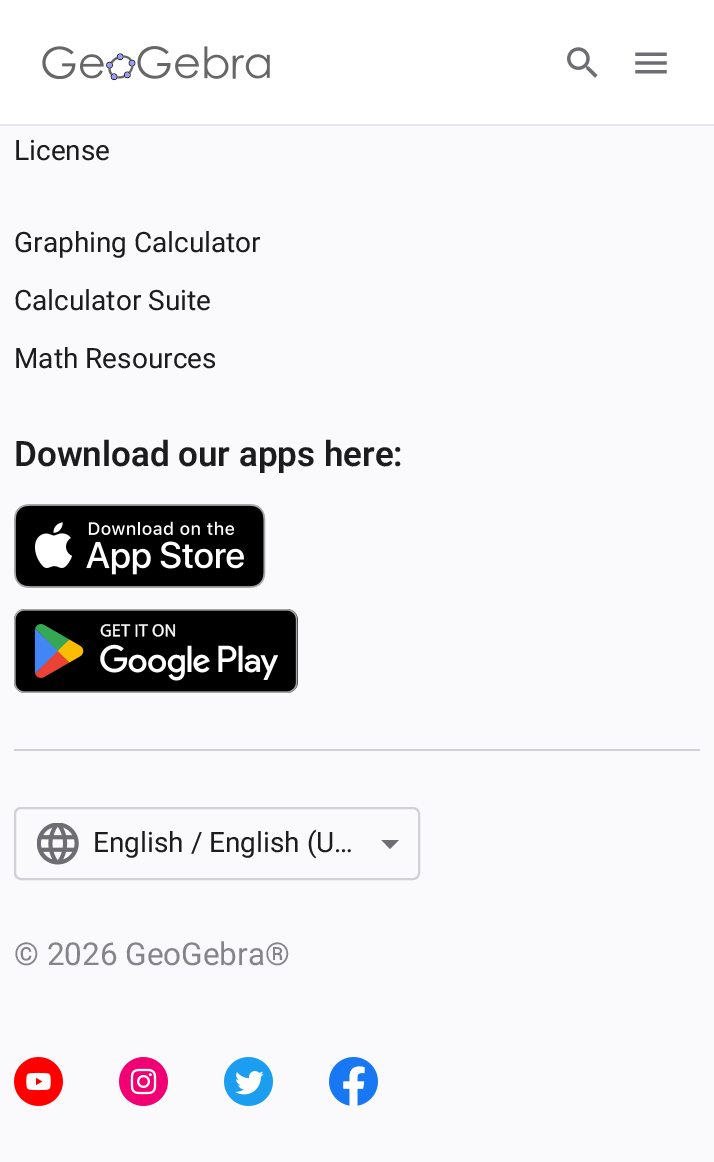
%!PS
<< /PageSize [714 1162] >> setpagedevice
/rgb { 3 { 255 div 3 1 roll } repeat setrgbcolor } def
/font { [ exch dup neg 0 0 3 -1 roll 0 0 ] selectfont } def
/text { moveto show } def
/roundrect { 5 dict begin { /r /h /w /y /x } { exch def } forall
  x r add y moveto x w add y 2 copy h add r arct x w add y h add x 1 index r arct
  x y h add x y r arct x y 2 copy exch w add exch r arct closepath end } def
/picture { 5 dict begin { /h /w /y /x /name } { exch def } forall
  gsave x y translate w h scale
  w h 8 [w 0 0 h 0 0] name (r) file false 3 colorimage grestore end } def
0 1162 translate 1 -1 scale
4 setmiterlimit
250 250 252 rgb
0 0 714 1162 rectfill
255 255 255 rgb
0 0 714 124 rectfill
230 230 235 rgb
0 124 714 2 rectfill
(img_01.rgb) 42 46 228 35 picture
(img_02.rgb) 567 47 31 31 picture
(img_03.rgb) 635 52 32 22 picture
(img_04.rgb) 14 504 252 84 picture
(img_05.rgb) 14 609 284 84 picture
209 208 214 rgb
14 749 686 2 rectfill
2 setlinewidth
15 808 404 71 6 roundrect stroke
(img_06.rgb) 37 823 42 42 picture
110 109 115 rgb
381.5 840 moveto 8.5 9 rlineto 9 -9 rlineto closepath fill
(img_07.rgb) 14 1057 49 49 picture
(img_08.rgb) 119 1057 49 49 picture
(img_09.rgb) 224 1057 49 49 picture
(img_10.rgb) 329 1057 49 49 picture
/Roboto-Regular 28 font
28 28 31 rgb
(License) 14 160 text
(Graphing Calculator) 14 252 text
(Calculator Suite) 14 310 text
(Math Resources) 14 368 text
/Roboto-SemiBold 35 font
(Download our apps here:) 14 466 text
/Roboto-Regular 28 font
(English / English \(U…) 93 852 text
/Roboto-Regular 31.5 font
133 132 138 rgb
(© 2026 GeoGebra®) 14 965 text
showpage
